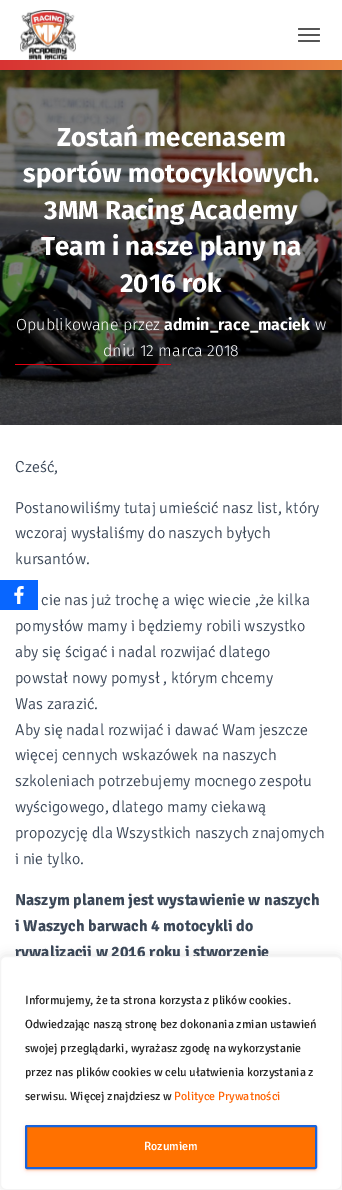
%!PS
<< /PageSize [342 1190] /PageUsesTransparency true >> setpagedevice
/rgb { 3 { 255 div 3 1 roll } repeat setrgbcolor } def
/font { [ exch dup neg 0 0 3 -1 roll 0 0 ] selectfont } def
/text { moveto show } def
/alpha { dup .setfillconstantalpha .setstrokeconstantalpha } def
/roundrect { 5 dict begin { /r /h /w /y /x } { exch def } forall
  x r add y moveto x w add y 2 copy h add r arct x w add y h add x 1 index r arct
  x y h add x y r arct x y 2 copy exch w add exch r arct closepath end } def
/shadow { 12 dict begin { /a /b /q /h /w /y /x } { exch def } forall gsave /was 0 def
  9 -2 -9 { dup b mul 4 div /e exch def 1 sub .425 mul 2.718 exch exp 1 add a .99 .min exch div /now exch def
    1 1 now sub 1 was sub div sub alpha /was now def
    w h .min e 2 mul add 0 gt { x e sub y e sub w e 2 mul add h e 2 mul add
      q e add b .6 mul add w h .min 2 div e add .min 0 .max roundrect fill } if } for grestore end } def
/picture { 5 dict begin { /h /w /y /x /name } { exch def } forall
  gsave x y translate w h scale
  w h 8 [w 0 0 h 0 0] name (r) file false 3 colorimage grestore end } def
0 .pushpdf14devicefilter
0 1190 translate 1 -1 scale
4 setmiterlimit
255 255 255 rgb
0 0 342 1190 rectfill
(img_02.rgb) 0 70 342 355 picture
0 0 0 rgb
2 6 338 66 0 2.5 0.1 shadow
0 1 342 70 0 5 0.12 shadow
6 7 330 58 0 5 0.42 shadow
255 255 255 rgb
0 0 342 60 rectfill
(img_01.rgb) 20 10 56 50 picture
85 85 85 rgb
298 28 22 2 1 roundrect fill
298 34 22 2 1 roundrect fill
298 40 22 2 1 roundrect fill
gsave 0 60 moveto 342 0 rlineto 0 10 rlineto -342 0 rlineto closepath clip newpath
<< /ShadingType 2 /ColorSpace /DeviceRGB /Coords [0 65 342 65] /Extend [true true] /Function << /FunctionType 2 /Domain [0 1] /C0 [0.847 0.2 0.2] /C1 [0.914 0.518 0.259] /N 1 >> >> shfill grestore
226 0 15 rgb
15 364 156 1 rectfill
8 102 255 rgb
0 580 38 30 rectfill
(img_03.rgb) 14 586 10 18 picture
172 171 171 rgb
0 955 342 234 6 5 0.3 shadow
/FiraSans-Bold 26 font
255 255 255 rgb
(Zostań mecenasem) 57 146 text
(sportów motocyklowych.) 23 182 text
(3MM Racing Academy) 44 219 text
(Team i nasze plany na) 41 255 text
(2016 rok) 120 292 text
/FiraSans-Light 16 font
(Opublikowane przez) 16 330 text
/FiraSans-Bold 16 font
(admin_race_maciek) 164 330 text
/FiraSans-Light 16 font
(w) 315 330 text
(dniu 12 marca 2018) 103 356 text
/Signika-Light 16 font
60 72 88 rgb
(Cześć,) 15 472 text
(Postanowiliśmy tutaj umieścić nasz list, który) 15 513 text
(wczoraj wysłaliśmy do naszych byłych) 15 538 text
(kursantów.) 15 564 text
(cie nas już trochę a więc wiecie ,że kilka) 41 605 text
(pomysłów mamy i będziemy robili wszystko) 15 631 text
(aby się ścigać i nadal rozwijać dlatego) 15 657 text
(powstał nowy pomysł , którym chcemy) 15 683 text
(Was zarazić.) 15 709 text
(Aby się nadal rozwijać i dawać Wam jeszcze) 15 735 text
(więcej cennych wskazówek na naszych) 15 760 text
(szkoleniach potrzebujemy mocnego zespołu) 15 786 text
(wyścigowego, dlatego mamy ciekawą) 15 812 text
(propozycję dla Wszystkich naszych znajomych) 15 838 text
(i nie tylko.) 15 864 text
/Signika-Bold 16 font
(Naszym planem jest wystawienie w naszych) 15 905 text
(i Waszych barwach 4 motocykli do) 15 931 text
(rywalizacji w 2016 roku i stworzenie) 15 957 text
255 255 255 rgb
0.5 956.5 341 233 5.5 roundrect gsave fill grestore
244 244 244 rgb
stroke
/Signika-Regular 12 font
33 33 33 rgb
(Informujemy, że ta strona korzysta z plików cookies.) 25 1004 text
(Odwiedzając naszą stronę bez dokonania zmian ustawień) 25 1028 text
(swojej przeglądarki, wyrażasz zgodę na wykorzystanie) 25 1052 text
(przez nas plików cookies w celu ułatwienia korzystania z) 25 1076 text
(serwisu. Więcej znajdziesz w) 25 1100 text
255 97 0 rgb
(Polityce Prywatności) 174 1100 text
25 1126 292 44 2 2.5 0.12 shadow
27 1130 288 40 0 0.5 0.2 shadow
25 1127 292 44 2 1 0.14 shadow
255 113 0 rgb
26 1126 290 42 1 roundrect gsave fill grestore
24 99 220 rgb
2 setlinewidth
stroke
/Signika-Medium 12 font
255 255 255 rgb
(Rozumiem) 144 1150 text
.poppdf14devicefilter showpage
